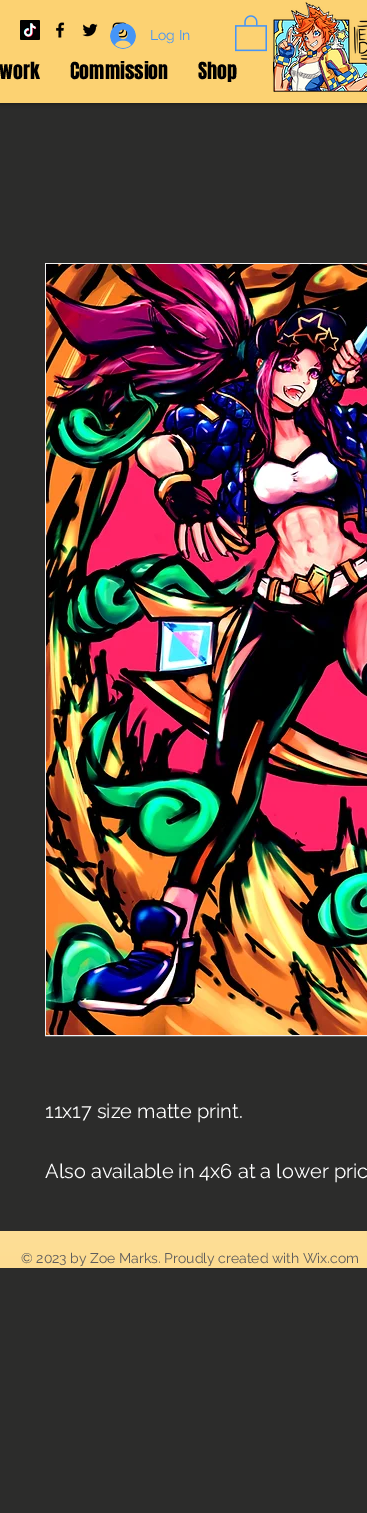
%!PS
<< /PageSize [367 1513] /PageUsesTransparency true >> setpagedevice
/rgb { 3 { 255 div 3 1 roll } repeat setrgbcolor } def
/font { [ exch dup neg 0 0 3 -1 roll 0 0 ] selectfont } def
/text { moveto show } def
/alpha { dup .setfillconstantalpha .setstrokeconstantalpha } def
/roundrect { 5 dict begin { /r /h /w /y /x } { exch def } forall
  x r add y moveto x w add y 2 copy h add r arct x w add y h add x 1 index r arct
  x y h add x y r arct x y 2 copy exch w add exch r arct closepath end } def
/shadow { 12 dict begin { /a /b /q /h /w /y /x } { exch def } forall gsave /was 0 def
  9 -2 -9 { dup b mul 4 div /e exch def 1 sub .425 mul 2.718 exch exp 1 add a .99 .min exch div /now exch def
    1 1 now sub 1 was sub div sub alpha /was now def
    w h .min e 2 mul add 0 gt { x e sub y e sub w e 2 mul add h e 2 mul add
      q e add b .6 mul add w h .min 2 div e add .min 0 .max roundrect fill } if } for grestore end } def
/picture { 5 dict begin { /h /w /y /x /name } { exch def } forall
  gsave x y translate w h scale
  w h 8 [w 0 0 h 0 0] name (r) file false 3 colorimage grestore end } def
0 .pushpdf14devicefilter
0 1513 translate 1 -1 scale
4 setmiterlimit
44 44 43 rgb
0 0 367 1513 rectfill
0 0 0 rgb
0 0 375 103 0 2.5 0.5 shadow
252 210 114 rgb
0 0 367 103 rectfill
(img_01.rgb) 20 20 20 20 picture
(img_02.rgb) 56 22 9 16 picture
(img_03.rgb) 82 23 16 14 picture
(img_04.rgb) 112 22 16 16 picture
(img_05.rgb) 273 2 94 90 picture
(img_06.rgb) 110 23 26 26 picture
(img_07.rgb) 235 15 32 37 picture
241 241 241 rgb
45.5 263.5 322 772 rectstroke
(img_08.rgb) 46 264 321 771 picture
252 210 114 rgb
0 1231 367 37 rectfill
(img_09.rgb) 0 1231 367 37 picture
/Raleway-Regular 14 font
69 149 247 rgb
(Log In) 150 40 text
/Anton-Regular 20 font
0 0 0 rgb
(work) -1 79 text
(Commission) 70 79 text
(Shop) 198 79 text
/Raleway-Regular 20 font
255 255 255 rgb
(11x17 size matte print.) 45 1118 text
(Also available in 4x6 at a lower pric) 45 1178 text
/Raleway-Regular 14 font
94 93 93 rgb
(© 2023 by Zoe Marks. Proudly created with Wix.com) 21 1263 text
.poppdf14devicefilter showpage
